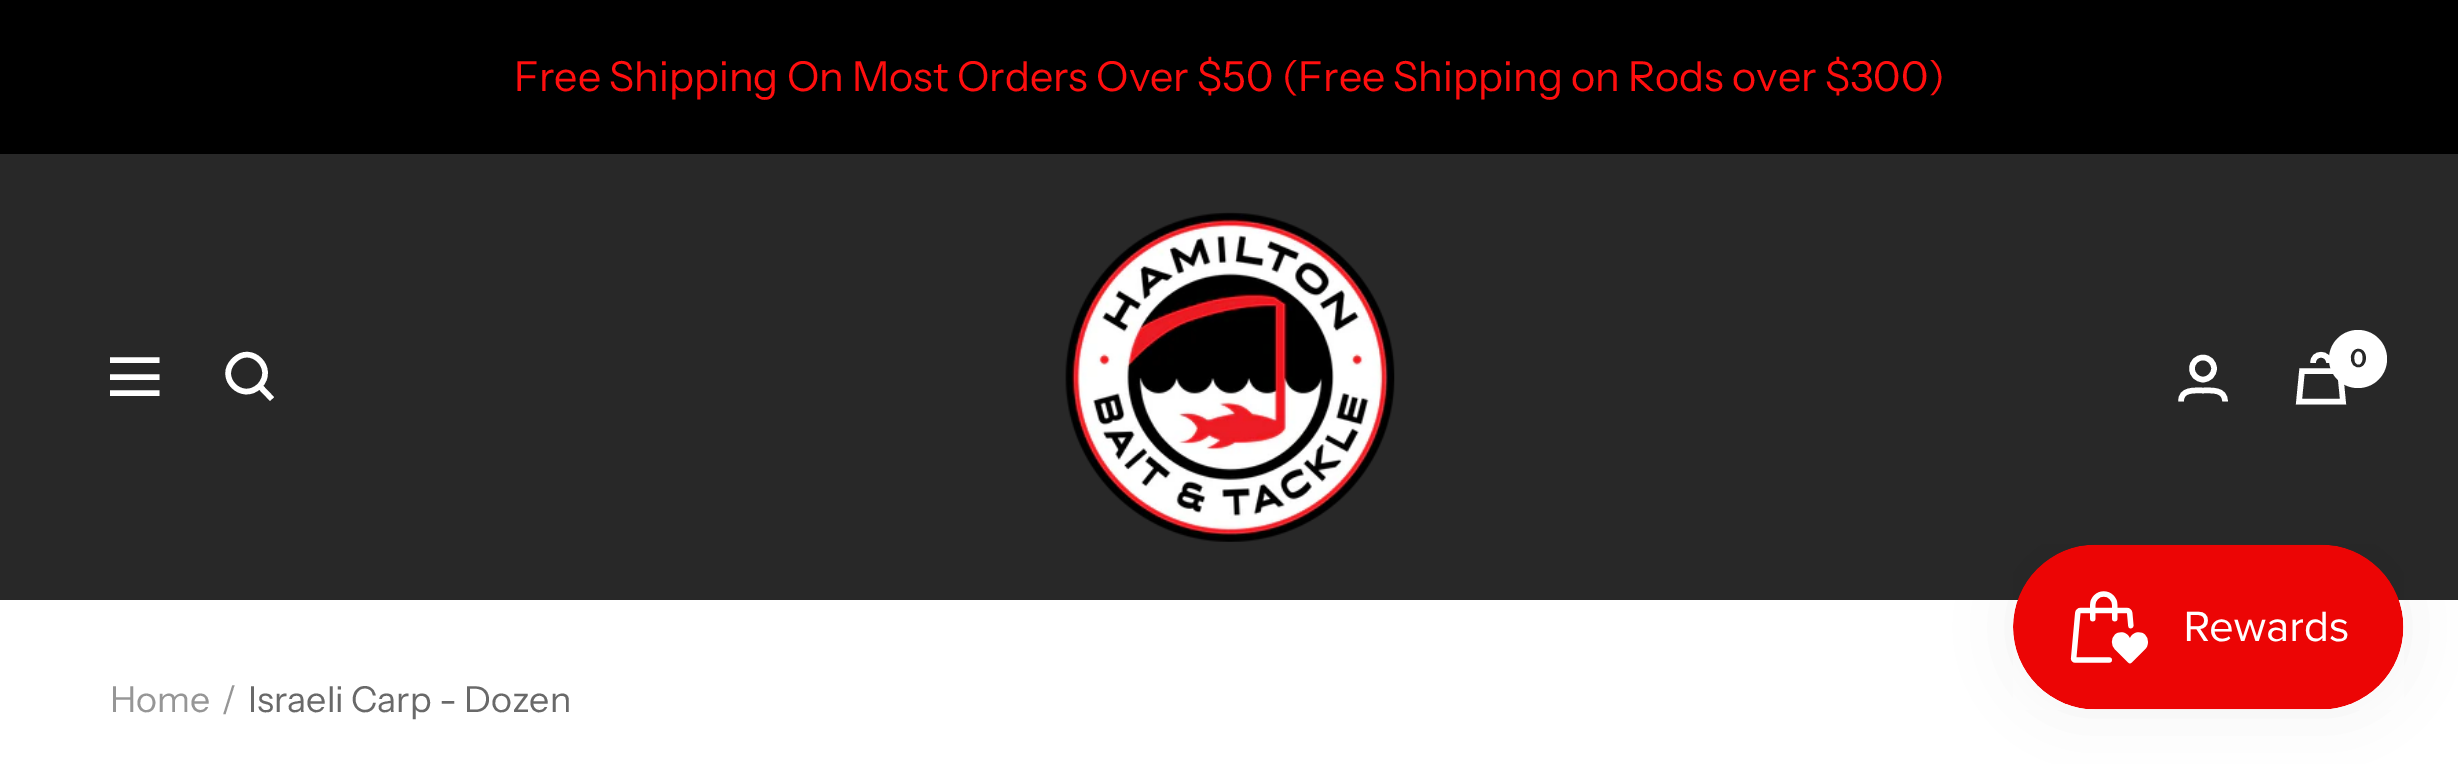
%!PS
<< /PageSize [2458 764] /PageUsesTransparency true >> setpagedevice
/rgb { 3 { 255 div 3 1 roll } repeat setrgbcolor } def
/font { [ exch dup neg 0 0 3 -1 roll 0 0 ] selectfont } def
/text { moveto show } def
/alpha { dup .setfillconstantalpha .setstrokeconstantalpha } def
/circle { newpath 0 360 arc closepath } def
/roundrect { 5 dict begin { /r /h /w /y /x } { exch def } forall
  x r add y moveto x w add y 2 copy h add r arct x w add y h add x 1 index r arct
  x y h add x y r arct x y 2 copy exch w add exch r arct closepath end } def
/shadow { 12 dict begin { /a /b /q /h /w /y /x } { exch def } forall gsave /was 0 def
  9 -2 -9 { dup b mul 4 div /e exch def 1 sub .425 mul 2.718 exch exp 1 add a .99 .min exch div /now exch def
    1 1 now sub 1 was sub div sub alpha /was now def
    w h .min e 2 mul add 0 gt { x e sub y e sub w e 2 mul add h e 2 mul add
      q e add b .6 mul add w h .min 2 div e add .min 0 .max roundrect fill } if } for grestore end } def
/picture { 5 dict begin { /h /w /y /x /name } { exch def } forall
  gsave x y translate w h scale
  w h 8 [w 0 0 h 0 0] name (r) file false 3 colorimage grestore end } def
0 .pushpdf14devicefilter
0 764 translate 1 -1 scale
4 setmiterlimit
255 255 255 rgb
0 0 2458 764 rectfill
0 0 0 rgb
0 0 2458 154 rectfill
40 40 40 rgb
0 154 2458 446 rectfill
255 255 255 rgb
5.5 setlinewidth
110 360 moveto 49.5 0 rlineto 110 393 moveto 49.5 0 rlineto closepath 110 377 moveto 49.5 0 rlineto closepath stroke
259.5 386 moveto 17 -17.5 -8.5 -43 -25.5 -25.5 rcurveto -17.5 17 8 42.5 25.5 25.5 rcurveto closepath 259.5 386 moveto 12.5 13 rlineto stroke
(img_01.rgb) 1065 212 330 330 picture
2203 368.5 11 circle stroke
2181 401.5 moveto 0 -12.5 13 -11 22 -11 rcurveto 8.5 0 22 -1.5 22 11 rcurveto stroke
2302 371 moveto 38 0 rlineto 3 30.5 rlineto -44 0 rlineto closepath 2329 363 moveto 0 -11 -16 -11 -16 0 rcurveto stroke
2358 359 29 circle fill
0 0 0 rgb
2013 545 391 165 82.5 34.5 0.05 shadow
(img_02.rgb) 2013 544 391 166 picture
/InstrumentSans-Regular 41.25 font
255 14 14 rgb
(Free Shipping On Most Orders Over $50 \(Free Shipping on Rods over $300\)) 514 91 text
/InstrumentSans-SemiBold 25 font
40 40 40 rgb
(0) 2350 367 text
/InstrumentSans-Regular 35.75 font
150 150 150 rgb
(Home) 110 712 text
(/) 221 712 text
105 105 105 rgb
(Israeli Carp - Dozen) 248 712 text
.poppdf14devicefilter showpage
